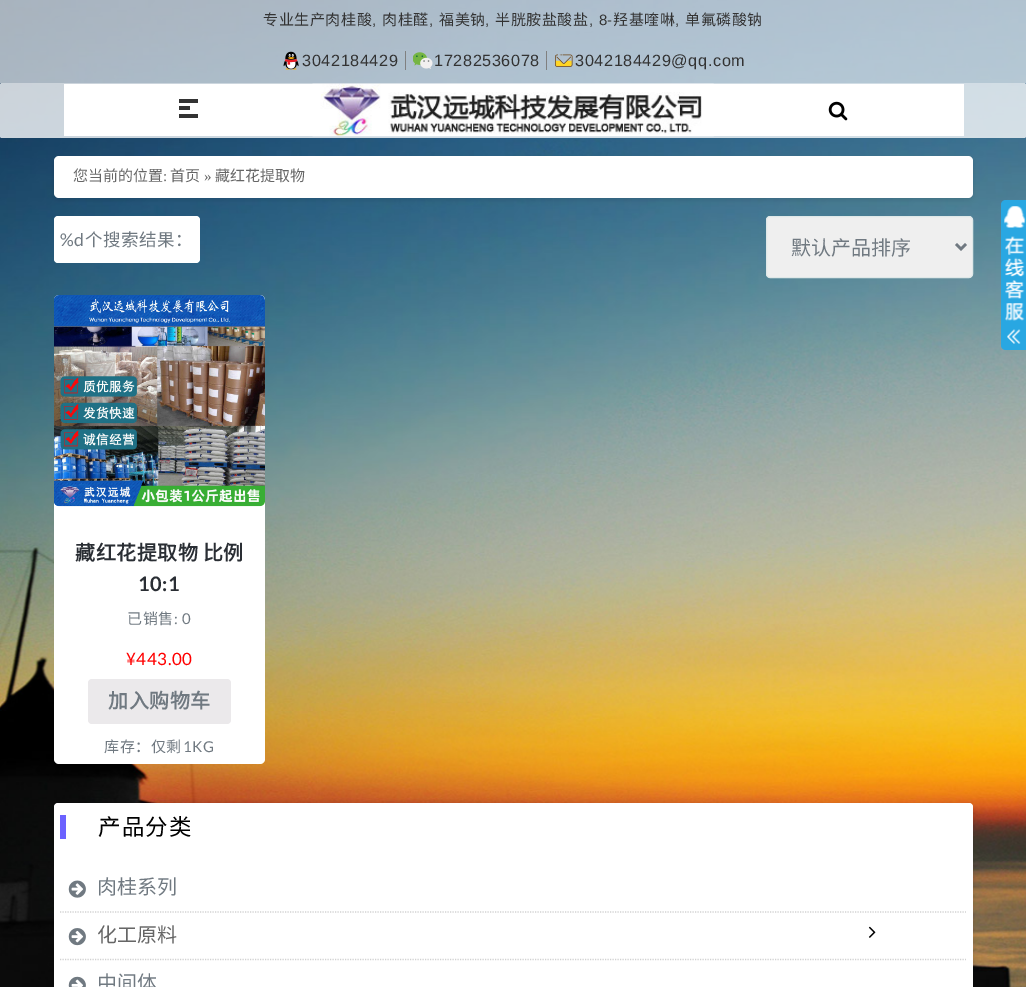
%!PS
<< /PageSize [1026 987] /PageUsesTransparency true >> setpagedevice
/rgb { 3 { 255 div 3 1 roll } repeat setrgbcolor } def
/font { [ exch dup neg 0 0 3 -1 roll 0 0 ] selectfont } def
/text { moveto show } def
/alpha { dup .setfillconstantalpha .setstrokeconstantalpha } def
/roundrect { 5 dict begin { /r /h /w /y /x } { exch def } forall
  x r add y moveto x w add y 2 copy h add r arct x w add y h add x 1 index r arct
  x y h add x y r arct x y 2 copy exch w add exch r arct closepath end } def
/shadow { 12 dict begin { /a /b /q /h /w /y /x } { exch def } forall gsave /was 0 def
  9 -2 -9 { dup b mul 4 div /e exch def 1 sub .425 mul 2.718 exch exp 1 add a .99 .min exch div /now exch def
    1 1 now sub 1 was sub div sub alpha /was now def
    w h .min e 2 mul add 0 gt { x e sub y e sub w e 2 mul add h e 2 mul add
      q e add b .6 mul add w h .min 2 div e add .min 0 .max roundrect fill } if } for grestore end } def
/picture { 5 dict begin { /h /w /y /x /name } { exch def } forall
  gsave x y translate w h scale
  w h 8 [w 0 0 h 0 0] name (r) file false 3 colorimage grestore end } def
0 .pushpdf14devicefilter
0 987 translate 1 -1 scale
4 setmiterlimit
255 255 255 rgb
0 0 1026 987 rectfill
(img_01.rgb) 0 0 1026 987 picture
0.64 alpha
0 0 1026 83 rectfill
1 alpha
(img_02.rgb) 283 51 16 19 picture
128 128 128 rgb
405 51 1 19 rectfill
(img_03.rgb) 413 52 20 17 picture
546 51 1 19 rectfill
(img_04.rgb) 555 54 18 13 picture
0.78 alpha
255 255 255 rgb
0 83 1026 55 2 roundrect fill
1 alpha
64 84 900 52 rectfill
51 51 51 rgb
179 99 19 4 rectfill
179 106 11 4 rectfill
179 114 19 4 rectfill
(img_05.rgb) 312 83 402 54 picture
(img_06.rgb) 828 101 20 20 picture
0 0 0 rgb
54 159 919 41 5 3 0.1 shadow
255 255 255 rgb
54 156 919 42 5 roundrect fill
54 216 146 47 4 roundrect fill
239 239 239 rgb
766.5 216.5 206 61 3.5 roundrect gsave fill grestore
223 232 232 rgb
stroke
112 121 129 rgb
2.5 setlinewidth
956 244 moveto 5 5 rlineto 5 -5 rlineto stroke
255 255 255 rgb
54 295 211 469 5 roundrect fill
(img_07.rgb) 54 295 211 212 picture
235 233 235 rgb
88 679 143 45 4 roundrect fill
0 0 0 rgb
54 805 919 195 4 3 0.1 shadow
255 255 255 rgb
54 803 919 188 4 roundrect fill
108 98 255 rgb
60 815 6 24 rectfill
209 209 209 rgb
1.2 setlinewidth
[1.25 1.25] 0 setdash
60 912 moveto 906 0 rlineto stroke
(img_08.rgb) 68 880 18 18 picture
60 959.5 moveto 906 0 rlineto stroke
(img_09.rgb) 68 928 18 18 picture
(img_10.rgb) 868 926 8 12 picture
(img_11.rgb) 68 976 18 11 picture
41 167 226 rgb
1006 200 moveto 20 0 rlineto 0 150 rlineto -20 0 rlineto -3 0 -5 -2 -5 -5 rcurveto 0 -140 rlineto 0 -3 2 -5 5 -5 rcurveto closepath fill
(img_12.rgb) 1004 206 22 138 picture
/NotoSansCJKSC-Regular 15 font
51 51 51 rgb
263 25 moveto 0.6 0 (专业生产肉桂酸) ashow
/LiberationSans-Regular 15 font
372 25 moveto 0.6 0 (,) ashow
/NotoSansCJKSC-Regular 15 font
382 25 moveto 0.6 0 (肉桂醛) ashow
/LiberationSans-Regular 15 font
429 25 moveto 0.6 0 (,) ashow
/NotoSansCJKSC-Regular 15 font
439 25 moveto 0.6 0 (福美钠) ashow
/LiberationSans-Regular 15 font
485 25 moveto 0.6 0 (,) ashow
/NotoSansCJKSC-Regular 15 font
495 25 moveto 0.6 0 (半胱胺盐酸盐) ashow
/LiberationSans-Regular 15 font
589 25 moveto 0.6 0 (, 8-) ashow
/NotoSansCJKSC-Regular 15 font
613 25 moveto 0.6 0 (羟基喹啉) ashow
/LiberationSans-Regular 15 font
675 25 moveto 0.6 0 (,) ashow
/NotoSansCJKSC-Regular 15 font
685 25 moveto 0.6 0 (单氟磷酸钠) ashow
/LiberationSans-Regular 16.25 font
302 66 moveto 0.6 0 (3042184429) ashow
434 66 moveto 0.6 0 (17282536078) ashow
575 66 moveto 0.6 0 (3042184429@qq.com) ashow
/NotoSansCJKSC-Regular 15 font
102 102 102 rgb
(您当前的位置) 73 181 text
/LiberationSerif-Regular 15 font
(:) 163 181 text
/NotoSansCJKSC-Regular 15 font
(首页) 170 181 text
/LiberationSerif-Regular 15 font
(») 204 181 text
/NotoSansCJKSC-Regular 15 font
(藏红花提取物) 215 181 text
/Lato-Regular 17.5 font
112 121 129 rgb
60 246 moveto 0.6 0 (%d) ashow
/NotoSansCJKSC-Regular 17.5 font
85 246 moveto 0.6 0 (个搜索结果：) ashow
/NotoSansCJKSC-Regular 20 font
(默认产品排序) 791 255 text
/NotoSansCJKSC-Bold 20 font
42 46 52 rgb
75 560 moveto -1 0 32 0.6 0 (藏红花提取物 比例) awidthshow
/Lato-Bold 20 font
138 591 moveto 0.6 0 (10:1) ashow
/NotoSansCJKSC-Regular 15 font
112 121 129 rgb
127 624 moveto 0.6 0 (已销售) ashow
/Lato-Regular 15 font
174 624 moveto 0.6 0 (: 0) ashow
/Lato-Regular 17 font
255 0 0 rgb
126 665 moveto 0.6 0 (¥443.00) ashow
/NotoSansCJKSC-Bold 20 font
112 121 129 rgb
108 708 moveto 0.6 0 (加入购物车) ashow
/NotoSansCJKSC-Regular 15 font
104 752 moveto 0.6 0 (库存：仅剩) ashow
/Lato-Regular 15 font
183 752 moveto 0.6 0 (1KG) ashow
/NotoSansCJKSC-Regular 22.5 font
0 0 0 rgb
98 835 moveto 1 0 (产品分类) ashow
/NotoSansCJKSC-Regular 20 font
112 121 129 rgb
(肉桂系列) 97 894 text
102 102 102 rgb
(化工原料) 97 942 text
112 121 129 rgb
(中间体) 97 990 text
.poppdf14devicefilter showpage
